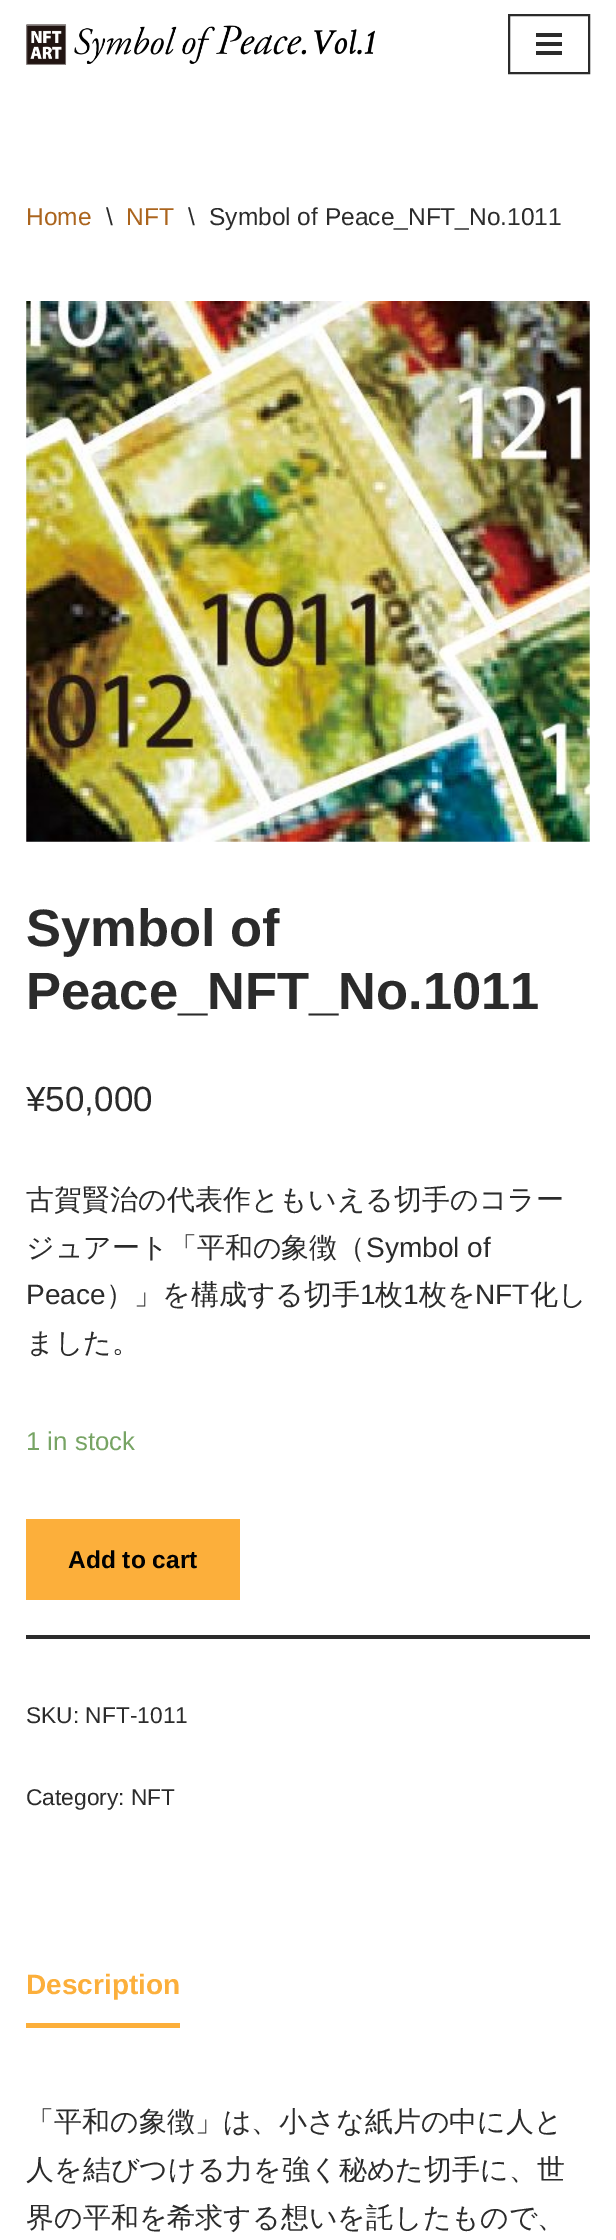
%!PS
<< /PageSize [616 2240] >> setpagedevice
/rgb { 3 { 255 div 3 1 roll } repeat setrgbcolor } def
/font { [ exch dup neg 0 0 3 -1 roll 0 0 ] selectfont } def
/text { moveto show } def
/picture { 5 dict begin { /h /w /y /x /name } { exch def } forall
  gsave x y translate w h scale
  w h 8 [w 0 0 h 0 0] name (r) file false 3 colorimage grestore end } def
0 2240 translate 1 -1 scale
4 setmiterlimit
255 255 255 rgb
0 0 616 2240 rectfill
(img_01.rgb) 26 24 349 41 picture
43 43 43 rgb
2 setlinewidth
509 15 80 58 rectstroke
536 33 26 4 rectfill
536 42 26 4 rectfill
536 51 26 4 rectfill
(img_02.rgb) 26 301 564 541 picture
26 1635 564 4 rectfill
252 175 59 rgb
26 1519 214 81 rectfill
26 2023 154 5 rectfill
/LiberationSans-Regular 24.5 font
171 100 29 rgb
(Home) 26 225 text
43 43 43 rgb
(\\) 106 225 text
171 100 29 rgb
(NFT) 126 225 text
43 43 43 rgb
(\\) 188 225 text
(Symbol of Peace_NFT_No.1011) 209 225 text
/LiberationSans-Bold 52.5 font
(Symbol of) 26 946 text
(Peace_NFT_No.1011) 26 1009 text
/LiberationSans-Regular 35 font
(¥50,000) 26 1111 text
/WenQuanYiZenHei-Medium 28 font
(古賀賢治の代表作ともいえる切手のコラー) 26 1209 text
(ジュアート「平和の象徴（) 26 1257 text
/LiberationSans-Regular 28 font
(Symbol of) 366 1257 text
(Peace) 26 1304 text
/WenQuanYiZenHei-Medium 28 font
(）」を構成する切手) 106 1304 text
/LiberationSans-Regular 28 font
(1) 360 1304 text
/WenQuanYiZenHei-Medium 28 font
(枚) 375 1304 text
/LiberationSans-Regular 28 font
(1) 403 1304 text
/WenQuanYiZenHei-Medium 28 font
(枚を) 419 1304 text
/LiberationSans-Regular 28 font
(NFT) 475 1304 text
/WenQuanYiZenHei-Medium 28 font
(化し) 530 1304 text
(ました。) 26 1352 text
/LiberationSans-Regular 25.75 font
119 164 100 rgb
(1 in stock) 26 1450 text
/LiberationSans-Bold 24.5 font
1 1 1 rgb
(Add to cart) 68 1568 text
/LiberationSans-Regular 22.75 font
43 43 43 rgb
(SKU: NFT-1011) 26 1723 text
(Category: NFT) 26 1805 text
/LiberationSans-Bold 28 font
252 175 59 rgb
(Description) 26 1994 text
/WenQuanYiZenHei-Medium 28 font
43 43 43 rgb
(「平和の象徴」は、小さな紙片の中に人と) 26 2131 text
(人を結びつける力を強く秘めた切手に、世) 26 2179 text
(界の平和を希求する想いを託したもので、) 26 2227 text
showpage
